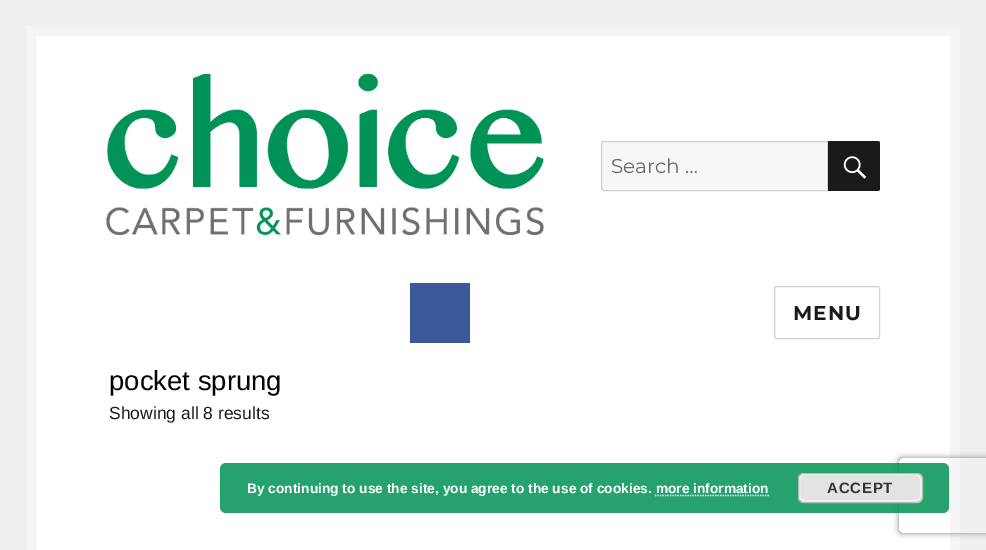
%!PS
<< /PageSize [986 550] /PageUsesTransparency true >> setpagedevice
/rgb { 3 { 255 div 3 1 roll } repeat setrgbcolor } def
/font { [ exch dup neg 0 0 3 -1 roll 0 0 ] selectfont } def
/text { moveto show } def
/alpha { dup .setfillconstantalpha .setstrokeconstantalpha } def
/roundrect { 5 dict begin { /r /h /w /y /x } { exch def } forall
  x r add y moveto x w add y 2 copy h add r arct x w add y h add x 1 index r arct
  x y h add x y r arct x y 2 copy exch w add exch r arct closepath end } def
/shadow { 12 dict begin { /a /b /q /h /w /y /x } { exch def } forall gsave /was 0 def
  9 -2 -9 { dup b mul 4 div /e exch def 1 sub .425 mul 2.718 exch exp 1 add a .99 .min exch div /now exch def
    1 1 now sub 1 was sub div sub alpha /was now def
    w h .min e 2 mul add 0 gt { x e sub y e sub w e 2 mul add h e 2 mul add
      q e add b .6 mul add w h .min 2 div e add .min 0 .max roundrect fill } if } for grestore end } def
/picture { 5 dict begin { /h /w /y /x /name } { exch def } forall
  gsave x y translate w h scale
  w h 8 [w 0 0 h 0 0] name (r) file false 3 colorimage grestore end } def
0 .pushpdf14devicefilter
0 550 translate 1 -1 scale
4 setmiterlimit
239 239 238 rgb
0 0 986 550 rectfill
255 255 255 rgb
31 31 moveto 924 0 rlineto 0 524 rlineto -924 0 rlineto closepath gsave fill grestore
245 245 245 rgb
10 setlinewidth
stroke
(img_01.rgb) 106 73 438 162 picture
247 247 247 rgb
603.5 141.5 moveto 224 0 rlineto 0 49 rlineto -224 0 rlineto -1 0 -2 -1 -2 -2 rcurveto 0 -45 rlineto 0 -1 1 -2 2 -2 rcurveto closepath gsave fill grestore
209 209 209 rgb
1 setlinewidth
stroke
26 26 26 rgb
828 141 moveto 49.5 0 rlineto 1.5 0 2.5 1 2.5 2.5 rcurveto 0 45 rlineto 0 1.5 -1 2.5 -2.5 2.5 rcurveto -49.5 0 rlineto closepath fill
(img_02.rgb) 843 156 24 23 picture
59 89 152 rgb
410 283 60 60 rectfill
209 209 209 rgb
774.5 286.5 105 52 2 roundrect stroke
gsave
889 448 moveto 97 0 rlineto 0 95 rlineto -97 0 rlineto closepath 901.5 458 moveto 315 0 rlineto 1.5 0 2.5 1 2.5 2.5 rcurveto 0 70 rlineto 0 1.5 -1 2.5 -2.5 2.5 rcurveto -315 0 rlineto -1.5 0 -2.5 -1 -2.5 -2.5 rcurveto 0 -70 rlineto 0 -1.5 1 -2.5 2.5 -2.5 rcurveto closepath eoclip newpath
128 128 128 rgb
899 458 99 75 2.5 3 1 shadow
grestore
0.85 alpha
0 146 85 rgb
220 463 729 50 6 roundrect fill
1 alpha
227 227 227 rgb
798 473 125 30 6 roundrect fill
246 246 246 rgb
799.5 474.5 121 26 4.5 roundrect stroke
187 187 187 rgb
798.5 473.5 124 29 5.5 roundrect stroke
255 255 255 rgb
1.2 setlinewidth
[1.25 1.25] 0 setdash
655 495.5 moveto 114 0 rlineto stroke
/Montserrat-Regular 20 font
104 104 104 rgb
(Search …) 611 173 text
/Montserrat-Bold 20 font
26 26 26 rgb
793 320 moveto 1 0 (MENU) ashow
/LiberationSans-Regular 27.5 font
3 3 3 rgb
(pocket sprung) 109 390 text
/LiberationSans-Regular 17.5 font
26 26 26 rgb
(Showing all 8 results) 109 419 text
/LiberationSans-Bold 13.75 font
255 255 255 rgb
(By continuing to use the site, you agree to the use of cookies. more information) 247 493 text
/LiberationSans-Bold 15 font
51 51 51 rgb
827 493 moveto 0.75 0 (ACCEPT) ashow
.poppdf14devicefilter showpage
